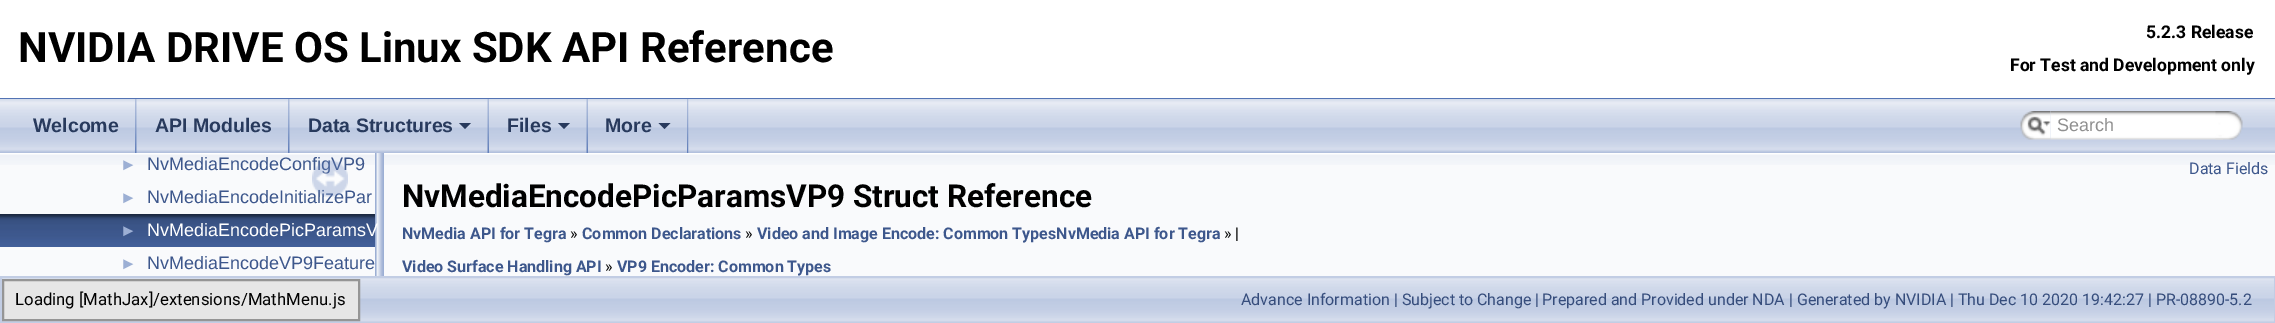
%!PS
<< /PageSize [2275 323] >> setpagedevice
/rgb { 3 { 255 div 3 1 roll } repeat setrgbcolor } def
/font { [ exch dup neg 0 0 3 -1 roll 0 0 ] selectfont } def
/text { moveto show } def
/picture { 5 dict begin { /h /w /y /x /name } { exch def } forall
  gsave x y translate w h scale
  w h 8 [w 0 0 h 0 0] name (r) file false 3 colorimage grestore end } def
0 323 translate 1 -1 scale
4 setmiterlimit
255 255 255 rgb
0 0 2275 323 rectfill
83 115 180 rgb
0 98 2275 1 rectfill
(img_01.rgb) 0 99 2275 54 picture
(img_02.rgb) 135 99 2 54 picture
(img_02.rgb) 288 99 2 54 picture
(img_03.rgb) 487 99 2 54 picture
40 58 93 rgb
459 123 moveto 12 0 rlineto -6 6 rlineto closepath fill
(img_03.rgb) 586 99 2 54 picture
558 123 moveto 12 0 rlineto -6 6 rlineto closepath fill
(img_04.rgb) 687 99 2 54 picture
658.5 123 moveto 12 0 rlineto -6 6 rlineto closepath fill
(img_05.rgb) 2020 111 31 29 picture
(img_06.rgb) 2027 116 24 20 picture
(img_07.rgb) 2050 111 173 29 picture
(img_08.rgb) 2215 111 28 29 picture
249 250 252 rgb
0 165 375 111 rectfill
(img_09.rgb) 0 153 375 12 picture
(img_10.rgb) 0 214 375 33 picture
(img_12.rgb) 375 153 9 123 picture
384 165 1891 111 rectfill
(img_13.rgb) 384 153 1891 12 picture
(img_14.rgb) 2 278 2272 44 picture
194 205 228 rgb
2 setlinewidth
1 277 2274 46 rectstroke
230 230 230 rgb
3 280 moveto 356 0 rlineto 0 40 rlineto -356 0 rlineto closepath gsave fill grestore
149 149 149 rgb
stroke
/Roboto-Bold 42 font
0 0 0 rgb
(NVIDIA DRIVE OS Linux SDK API Reference) 18 62 text
/Roboto-Bold 17.5 font
(5.2.3 Release) 2146 38 text
(For Test and Development only) 2010 71 text
/LiberationSans-Bold 19.5 font
40 58 93 rgb
(Welcome) 33 132 text
(API Modules) 155 132 text
(Data Structures) 308 132 text
(Files) 507 132 text
(More) 605 132 text
/LiberationSans-Regular 18 font
144 144 144 rgb
(Search) 2057 131 text
/LiberationSans-Regular 16.75 font
156 175 212 rgb
(►) 120 170 text
/LiberationSans-Regular 18 font
61 87 140 rgb
(NvMediaEncodeConfigVP9) 147 170 text
/LiberationSans-Regular 16.75 font
156 175 212 rgb
(►) 120 203 text
/LiberationSans-Regular 18 font
61 87 140 rgb
(NvMediaEncodeInitializePar) 147 203 text
/LiberationSans-Regular 16.75 font
156 175 212 rgb
(►) 120 236 text
/LiberationSans-Regular 18 font
255 255 255 rgb
(NvMediaEncodePicParamsV) 147 236 text
/LiberationSans-Regular 16.75 font
156 175 212 rgb
(►) 120 269 text
/LiberationSans-Regular 18 font
61 87 140 rgb
(NvMediaEncodeVP9Feature) 147 269 text
(img_11.rgb) 312 160 36 37 picture
/Roboto-Regular 16 font
(Data Fields) 2189 174 text
/Roboto-Bold 31.5 font
0 0 0 rgb
(NvMediaEncodePicParamsVP9 Struct Reference) 402 207 text
/Roboto-Bold 16 font
61 87 140 rgb
(NvMedia API for Tegra) 402 239 text
/Roboto-Regular 16 font
0 0 0 rgb
(») 570 239 text
/Roboto-Bold 16 font
61 87 140 rgb
(Common Declarations) 582 239 text
/Roboto-Regular 16 font
0 0 0 rgb
(») 745 239 text
/Roboto-Bold 16 font
61 87 140 rgb
(Video and Image Encode: Common TypesNvMedia API for Tegra) 757 239 text
/Roboto-Regular 16 font
0 0 0 rgb
(» |) 1224 239 text
/Roboto-Bold 16 font
61 87 140 rgb
(Video Surface Handling API) 402 272 text
/Roboto-Regular 16 font
0 0 0 rgb
(») 605 272 text
/Roboto-Bold 16 font
61 87 140 rgb
(VP9 Encoder: Common Types) 617 272 text
/Roboto-Regular 16.75 font
0 0 0 rgb
(Loading [MathJax]/extensions/MathMenu.js) 15 305 text
/Roboto-Regular 16 font
54 77 124 rgb
(Advance Information | Subject to Change |) 1241 305 text
(Prepared and Provided under NDA | Generated by NVIDIA | Thu Dec 10 2020 19:42:27 | PR-08890-5.2) 1542 305 text
showpage
